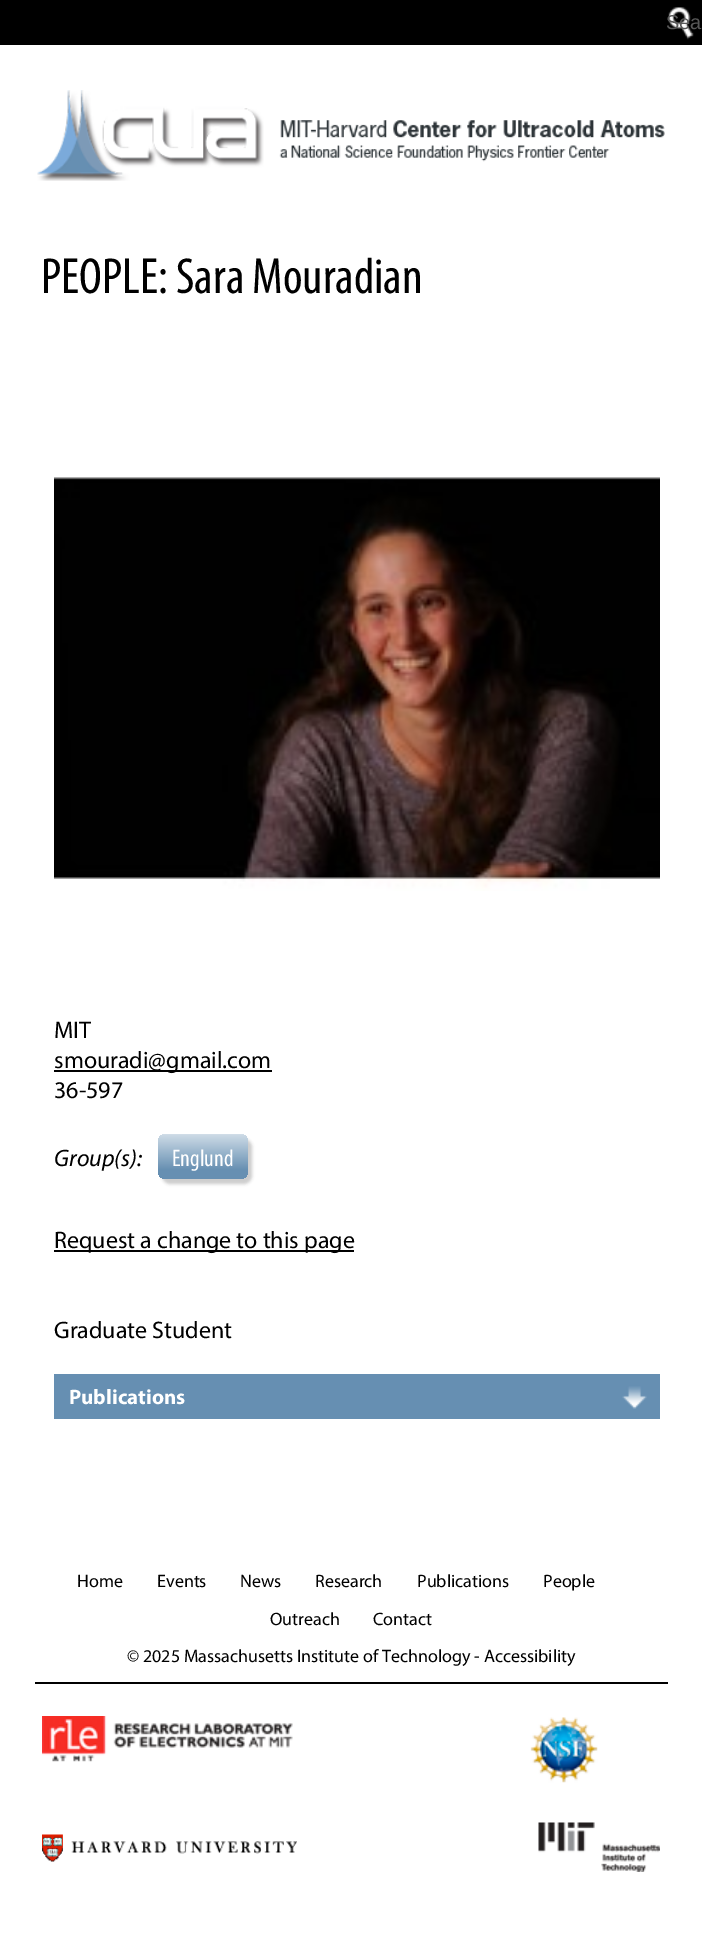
%!PS
<< /PageSize [702 1945] /PageUsesTransparency true >> setpagedevice
/rgb { 3 { 255 div 3 1 roll } repeat setrgbcolor } def
/font { [ exch dup neg 0 0 3 -1 roll 0 0 ] selectfont } def
/text { moveto show } def
/alpha { dup .setfillconstantalpha .setstrokeconstantalpha } def
/roundrect { 5 dict begin { /r /h /w /y /x } { exch def } forall
  x r add y moveto x w add y 2 copy h add r arct x w add y h add x 1 index r arct
  x y h add x y r arct x y 2 copy exch w add exch r arct closepath end } def
/shadow { 12 dict begin { /a /b /q /h /w /y /x } { exch def } forall gsave /was 0 def
  9 -2 -9 { dup b mul 4 div /e exch def 1 sub .425 mul 2.718 exch exp 1 add a .99 .min exch div /now exch def
    1 1 now sub 1 was sub div sub alpha /was now def
    w h .min e 2 mul add 0 gt { x e sub y e sub w e 2 mul add h e 2 mul add
      q e add b .6 mul add w h .min 2 div e add .min 0 .max roundrect fill } if } for grestore end } def
/picture { 5 dict begin { /h /w /y /x /name } { exch def } forall
  gsave x y translate w h scale
  w h 8 [w 0 0 h 0 0] name (r) file false 3 colorimage grestore end } def
0 .pushpdf14devicefilter
0 1945 translate 1 -1 scale
4 setmiterlimit
255 255 255 rgb
0 0 702 1945 rectfill
0 0 0 rgb
0 0 702 45 rectfill
(img_01.rgb) 668 7 26 33 picture
(img_02.rgb) 37 90 628 91 picture
(img_03.rgb) 54 477 606 414 picture
54 1070 218 2 rectfill
204 204 204 rgb
162 1139 90 45 8 1.5 1 shadow
gsave 158 1134 90 45 8 roundrect clip newpath
<< /ShadingType 2 /ColorSpace /DeviceRGB /Coords [203 1179 203 1134] /Extend [true true] /Function << /FunctionType 3 /Domain [0 1] /Functions [<< /FunctionType 2 /Domain [0 1] /C0 [0.4 0.561 0.698] /C1 [0.4 0.561 0.698] /N 1 >> << /FunctionType 2 /Domain [0 1] /C0 [0.4 0.561 0.698] /C1 [0.812 0.863 0.906] /N 1 >>] /Bounds [0.2] /Encode [0 1 0 1] >> >> shfill grestore
0 0 0 rgb
54 1250 300 2 rectfill
102 143 178 rgb
54 1374 606 45 rectfill
(img_04.rgb) 622 1386 25 23 picture
0 0 0 rgb
35 1682 633 2 rectfill
(img_05.rgb) 42 1716 251 46 picture
(img_06.rgb) 530 1717 68 66 picture
(img_07.rgb) 42 1834 255 28 picture
(img_08.rgb) 538 1822 122 50 picture
/LiberationSans-Regular 20 font
88 88 88 rgb
(Sea) 666 29 text
/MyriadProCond-Regular 51 font
0 0 0 rgb
(PEOPLE: Sara Mouradian) 41 293 text
/Myriad-Regular 24 font
(MIT) 54 1038 text
(smouradi@gmail.com) 54 1068 text
(36-597) 54 1098 text
/Myriad-Italic 24 font
(Group\(s\):) 54 1166 text
/MyriadProCond-Regular 24 font
255 255 255 rgb
(Englund) 172 1166 text
/Myriad-Regular 24 font
0 0 0 rgb
(Request a change to this page) 54 1248 text
(Graduate Student) 54 1338 text
/Myriad-Bold 21 font
255 255 255 rgb
(Publications) 69 1404 text
/Myriad-Regular 18 font
0 0 0 rgb
(Home) 77 1587 text
(Events) 157 1587 text
(News) 240 1587 text
(Research) 315 1587 text
(Publications) 417 1587 text
(People) 543 1587 text
(Outreach) 270 1625 text
(Contact) 373 1625 text
(© 2025 Massachusetts Institute of Technology - Accessibility) 127 1662 text
.poppdf14devicefilter showpage
